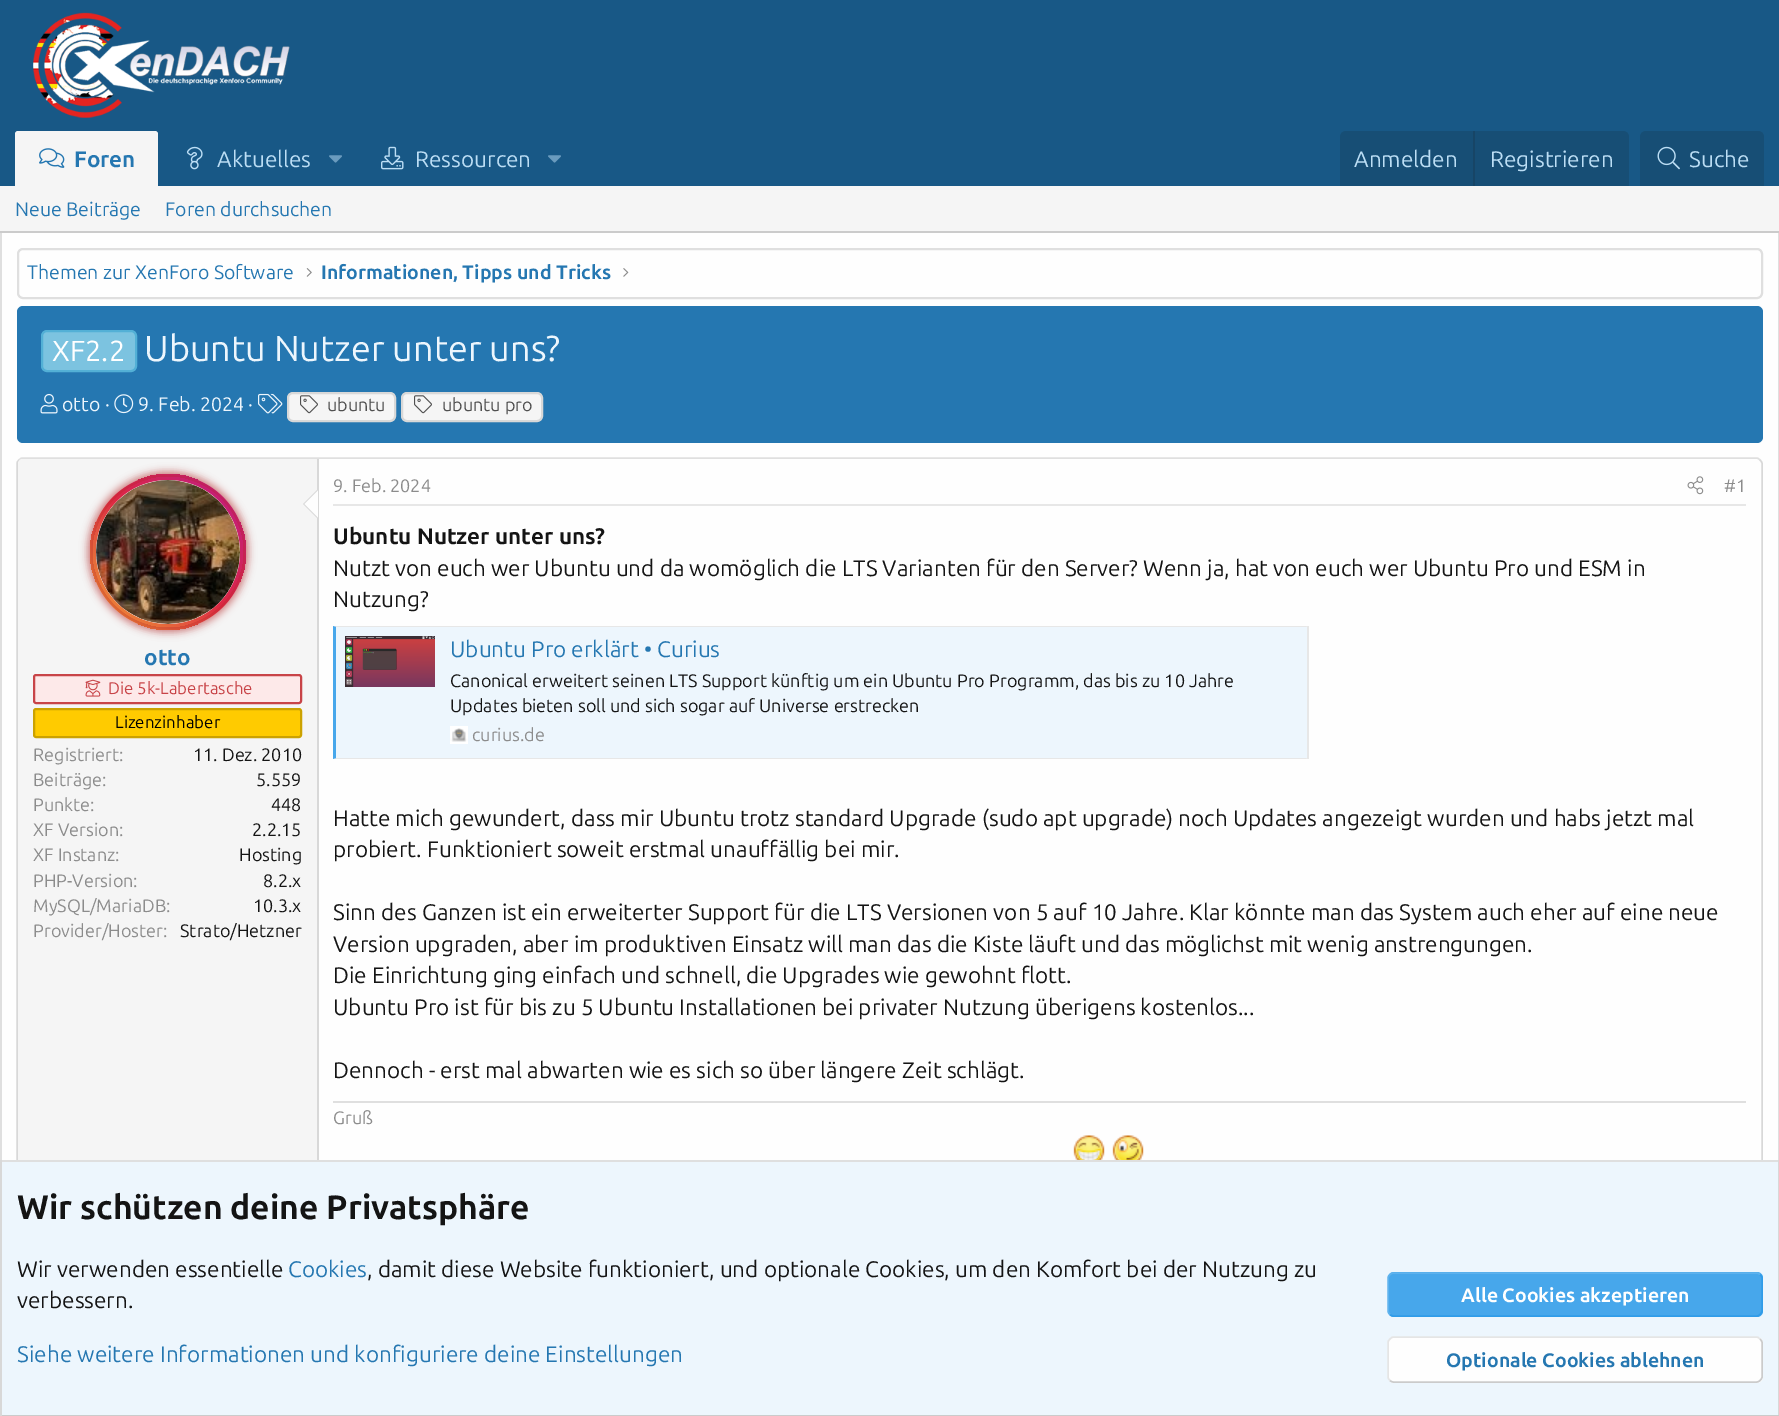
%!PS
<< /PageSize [1779 1416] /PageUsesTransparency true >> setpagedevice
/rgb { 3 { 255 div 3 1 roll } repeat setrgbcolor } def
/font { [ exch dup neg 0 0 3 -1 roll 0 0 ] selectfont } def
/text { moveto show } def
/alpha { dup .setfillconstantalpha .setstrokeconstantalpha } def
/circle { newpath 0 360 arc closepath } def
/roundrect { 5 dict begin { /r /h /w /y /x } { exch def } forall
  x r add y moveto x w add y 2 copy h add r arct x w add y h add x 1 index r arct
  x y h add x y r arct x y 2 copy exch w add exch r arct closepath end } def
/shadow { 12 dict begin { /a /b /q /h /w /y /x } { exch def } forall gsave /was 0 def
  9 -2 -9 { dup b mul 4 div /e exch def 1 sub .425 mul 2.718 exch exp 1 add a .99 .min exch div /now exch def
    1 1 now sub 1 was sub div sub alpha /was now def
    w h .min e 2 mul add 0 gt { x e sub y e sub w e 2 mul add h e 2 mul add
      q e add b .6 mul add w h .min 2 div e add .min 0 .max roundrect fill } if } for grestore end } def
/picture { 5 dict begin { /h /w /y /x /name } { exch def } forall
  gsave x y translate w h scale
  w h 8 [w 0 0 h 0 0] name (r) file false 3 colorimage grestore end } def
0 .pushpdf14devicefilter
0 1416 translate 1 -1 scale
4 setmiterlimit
24 88 134 rgb
0 0 1779 1416 rectfill
(img_01.rgb) 33 12 257 106 picture
245 245 245 rgb
18 131 moveto 137 0 rlineto 1.5 0 3 1.5 3 3 rcurveto 0 52 rlineto -143 0 rlineto 0 -52 rlineto 0 -1.5 1.5 -3 3 -3 rcurveto closepath fill
(img_02.rgb) 39 148 26 20 picture
(img_03.rgb) 186 146 17 24 picture
(img_04.rgb) 329 155 13 8 picture
(img_05.rgb) 381 146 23 24 picture
(img_04.rgb) 548 155 13 8 picture
23 78 117 rgb
1346 131 moveto 277 0 rlineto 3.5 0 6 2.5 6 6 rcurveto 0 49 rlineto -289 0 rlineto 0 -49 rlineto 0 -3.5 2.5 -6 6 -6 rcurveto closepath fill
23 69 102 rgb
1473 131 2 55 rectfill
23 78 117 rgb
1646 131 moveto 112 0 rlineto 3.5 0 6 2.5 6 6 rcurveto 0 49 rlineto -124 0 rlineto 0 -49 rlineto 0 -3.5 2.5 -6 6 -6 rcurveto closepath fill
(img_06.rgb) 1657 146 23 24 picture
245 245 245 rgb
0 186 1779 45 rectfill
203 203 203 rgb
0 231 1779 2 rectfill
254 254 254 rgb
2 233 1776 927 rectfill
223 223 223 rgb
1778 233 1 927 rectfill
0 233 2 927 rectfill
2 setlinewidth
18 249 1744 49 5 roundrect stroke
(img_07.rgb) 306 268 6 9 picture
(img_08.rgb) 623 268 6 9 picture
37 119 177 rgb
17 306 1746 137 6 roundrect fill
124 195 224 rgb
42 331 94 40 5 roundrect gsave fill grestore
83 176 214 rgb
stroke
(img_09.rgb) 40 393 18 21 picture
(img_10.rgb) 114 394 20 20 picture
(img_11.rgb) 258 393 25 21 picture
245 245 245 rgb
288 393 107 28 5 roundrect gsave fill grestore
216 216 216 rgb
stroke
(img_12.rgb) 300 395 18 19 picture
245 245 245 rgb
402 393 140 28 5 roundrect gsave fill grestore
216 216 216 rgb
stroke
(img_12.rgb) 414 395 18 19 picture
223 223 223 rgb
1.5 setlinewidth
19 460 moveto 1 -1 2 -2 3.5 -2 rcurveto 1734 0 rlineto 1.5 0 2.5 1 3.5 2 rcurveto stroke
216 216 216 rgb
1760 460 moveto 1 1 2 2 2 3.5 rcurveto 0 880.5 rlineto 0 1.5 -1 2.5 -2 3.5 rcurveto stroke
19 1347.5 moveto -1 -1 -2 -2 -2 -3.5 rcurveto 0 -880.5 rlineto 0 -1.5 1 -2.5 2 -3.5 rcurveto stroke
245 245 245 rgb
23 459 moveto 295 0 rlineto 0 890 rlineto -295 0 rlineto -3 0 -5 -2 -5 -5 rcurveto 0 -880 rlineto 0 -3 2 -5 5 -5 rcurveto closepath fill
216 216 216 rgb
317 459 2 701 rectfill
178 34 34 rgb
87 471 162 162 81 4 0.38 shadow
gsave 168 552 78 circle clip newpath
<< /ShadingType 2 /ColorSpace /DeviceRGB /Coords [90 630 246 474] /Extend [true true] /Function << /FunctionType 3 /Domain [0 1] /Functions [<< /FunctionType 2 /Domain [0 1] /C0 [0.941 0.58 0.2] /C1 [0.902 0.408 0.235] /N 1 >> << /FunctionType 2 /Domain [0 1] /C0 [0.902 0.408 0.235] /C1 [0.863 0.153 0.263] /N 1 >> << /FunctionType 2 /Domain [0 1] /C0 [0.863 0.153 0.263] /C1 [0.8 0.137 0.4] /N 1 >> << /FunctionType 2 /Domain [0 1] /C0 [0.8 0.137 0.4] /C1 [0.737 0.094 0.533] /N 1 >>] /Bounds [0.25 0.5 0.75] /Encode [0 1 0 1 0 1 0 1] >> >> shfill grestore
90 474 156 156 78 4 0.38 shadow
gsave 168 552 75 circle clip newpath
<< /ShadingType 2 /ColorSpace /DeviceRGB /Coords [93 627 243 477] /Extend [true true] /Function << /FunctionType 3 /Domain [0 1] /Functions [<< /FunctionType 2 /Domain [0 1] /C0 [0.941 0.58 0.2] /C1 [0.902 0.408 0.235] /N 1 >> << /FunctionType 2 /Domain [0 1] /C0 [0.902 0.408 0.235] /C1 [0.863 0.153 0.263] /N 1 >> << /FunctionType 2 /Domain [0 1] /C0 [0.863 0.153 0.263] /C1 [0.8 0.137 0.4] /N 1 >> << /FunctionType 2 /Domain [0 1] /C0 [0.8 0.137 0.4] /C1 [0.737 0.094 0.533] /N 1 >>] /Bounds [0.25 0.5 0.75] /Encode [0 1 0 1 0 1 0 1] >> >> shfill grestore
254 254 254 rgb
168 552 72 circle fill
(img_13.rgb) 96 480 144 144 picture
216 216 216 rgb
318 489 moveto 0 30 rlineto -15 -15 rlineto closepath fill
254 254 254 rgb
318 490.5 moveto 0 27 rlineto -13.5 -13.5 rlineto closepath fill
253 233 233 rgb
34 675 267 28 2 roundrect gsave fill grestore
200 68 72 rgb
2 setlinewidth
stroke
(img_14.rgb) 85 679 16 18 picture
255 203 0 rgb
34 709 267 28 2 roundrect gsave fill grestore
204 162 0 rgb
stroke
231 231 231 rgb
333 504 1413 2 rectfill
(img_15.rgb) 1687 476 17 19 picture
237 246 253 rgb
336 627 971 131 rectfill
231 231 231 rgb
333 626 moveto 975 0 rlineto -2 1 rlineto -970 0 rlineto closepath fill
1307 626 2 133 rectfill
1308 759 moveto -975 0 rlineto 3 -1 rlineto 970 0 rlineto closepath fill
71 167 235 rgb
333 759 moveto 0 -133 rlineto 3 1 rlineto 0 131 rlineto closepath fill
(img_16.rgb) 345 636 90 51 picture
(img_17.rgb) 450 726 18 18 picture
223 223 223 rgb
333 1101 1413 2 rectfill
(img_18.rgb) 1073 1135 32 25 picture
(img_19.rgb) 1112 1135 32 25 picture
237 246 253 rgb
2 1162 1776 253 rectfill
223 223 223 rgb
0 1160 1779 2 rectfill
216 216 216 rgb
1778 1160 1 256 rectfill
203 203 203 rgb
0 1415 1779 1 rectfill
216 216 216 rgb
0 1160 2 256 rectfill
71 167 235 rgb
1388 1272 375 45 6 roundrect fill
48 156 232 rgb
1.5 setlinewidth
1760 1274.5 moveto 1 1 2 2 2 3.5 rcurveto 0 33 rlineto 0 1.5 -1 2.5 -2 3.5 rcurveto -1 1 -2 1.5 -3.5 1.5 rcurveto -363 0 rlineto -1.5 0 -2.5 -0.5 -3.5 -1.5 rcurveto stroke
94 178 237 rgb
1390 1314.5 moveto -1 -1 -2 -2 -2 -3.5 rcurveto 0 -33 rlineto 0 -1.5 1 -2.5 2 -3.5 rcurveto 1 -1 2 -1.5 3.5 -1.5 rcurveto 363 0 rlineto 1.5 0 2.5 0.5 3.5 1.5 rcurveto stroke
254 254 254 rgb
1388 1337 375 46 6 roundrect fill
203 203 203 rgb
1760 1339 moveto 1 1 2 2 2 3.5 rcurveto 0 34.5 rlineto 0 1.5 -1 2.5 -2 3.5 rcurveto -1 1 -2 1.5 -3.5 1.5 rcurveto -363 0 rlineto -1.5 0 -2.5 -0.5 -3.5 -1.5 rcurveto stroke
229 229 229 rgb
1390 1380.5 moveto -1 -1 -2 -2 -2 -3.5 rcurveto 0 -34.5 rlineto 0 -1.5 1 -2.5 2 -3.5 rcurveto 1 -1 2 -2 3.5 -2 rcurveto 363 0 rlineto 1.5 0 2.5 1 3.5 2 rcurveto stroke
/Ubuntu-Bold 22.5 font
37 119 177 rgb
(Foren) 74 167 text
/Ubuntu-Regular 22.5 font
188 222 245 rgb
(Aktuelles) 217 167 text
(Ressourcen) 415 167 text
(Anmelden) 1354 167 text
(Registrieren) 1490 167 text
(Suche) 1689 167 text
/Ubuntu-Regular 19.5 font
37 119 177 rgb
(Neue Beiträge) 15 216 text
(Foren durchsuchen) 165 216 text
(Themen zur XenForo Software) 27 279 text
/Ubuntu-Bold 19.5 font
(Informationen, Tipps und Tricks) 321 279 text
/Ubuntu-Regular 29 font
255 255 255 rgb
(XF2.2) 52 361 text
/Ubuntu-Regular 36 font
237 246 253 rgb
(Ubuntu Nutzer unter uns?) 144 361 text
/Ubuntu-Regular 19.5 font
(otto ·) 62 411 text
(9. Feb. 2024 ·) 138 411 text
/Ubuntu-Regular 18 font
80 80 80 rgb
(ubuntu) 327 411 text
(ubuntu pro) 442 411 text
/Ubuntu-Bold 22.5 font
37 119 177 rgb
(otto) 144 665 text
/Ubuntu-Regular 16.9 font
200 68 72 rgb
(Die 5k-Labertasche) 108 694 text
0 0 0 rgb
(Lizenzinhaber) 115 728 text
/Ubuntu-Regular 18 font
140 140 140 rgb
(Registriert:) 33 761 text
20 20 20 rgb
(11. Dez. 2010) 193 761 text
140 140 140 rgb
(Beiträge:) 33 786 text
20 20 20 rgb
(5.559) 256 786 text
140 140 140 rgb
(Punkte:) 33 811 text
20 20 20 rgb
(448) 271 811 text
140 140 140 rgb
(XF Version:) 33 836 text
20 20 20 rgb
(2.2.15) 252 836 text
140 140 140 rgb
(XF Instanz:) 33 861 text
20 20 20 rgb
(Hosting) 239 861 text
140 140 140 rgb
(PHP-Version:) 33 887 text
20 20 20 rgb
(8.2.x) 263 887 text
140 140 140 rgb
(MySQL/MariaDB:) 33 912 text
20 20 20 rgb
(10.3.x) 253 912 text
140 140 140 rgb
(Provider/Hoster:) 33 937 text
20 20 20 rgb
(Strato/Hetzner) 180 937 text
140 140 140 rgb
(9. Feb. 2024) 333 492 text
(#1) 1724 492 text
/Ubuntu-Bold 22.5 font
20 20 20 rgb
(Ubuntu Nutzer unter uns?) 333 544 text
/Ubuntu-Regular 22.5 font
(Nutzt von euch wer Ubuntu und da womöglich die LTS Varianten für den Server? Wenn ja, hat von euch wer Ubuntu Pro und ESM in) 333 576 text
(Nutzung?) 333 607 text
37 119 177 rgb
(Ubuntu Pro erklärt • Curius) 450 657 text
/Ubuntu-Regular 18 font
20 20 20 rgb
(Canonical erweitert seinen LTS Support künftig um ein Ubuntu Pro Programm, das bis zu 10 Jahre) 450 687 text
(Updates bieten soll und sich sogar auf Universe erstrecken) 450 712 text
140 140 140 rgb
(curius.de) 472 741 text
/Ubuntu-Regular 22.5 font
20 20 20 rgb
(Hatte mich gewundert, dass mir Ubuntu trotz standard Upgrade \(sudo apt upgrade\) noch Updates angezeigt wurden und habs jetzt mal) 333 826 text
(probiert. Funktioniert soweit erstmal unauffällig bei mir.) 333 857 text
(Sinn des Ganzen ist ein erweiterter Support für die LTS Versionen von 5 auf 10 Jahre. Klar könnte man das System auch eher auf eine neue) 333 920 text
(Version upgraden, aber im produktiven Einsatz will man das die Kiste läuft und das möglichst mit wenig anstrengungen.) 333 952 text
(Die Einrichtung ging einfach und schnell, die Upgrades wie gewohnt flott.) 333 983 text
(Ubuntu Pro ist für bis zu 5 Ubuntu Installationen bei privater Nutzung überigens kostenlos...) 333 1015 text
(Dennoch - erst mal abwarten wie es sich so über längere Zeit schlägt.) 333 1078 text
/Ubuntu-Regular 18 font
140 140 140 rgb
(Gruß) 333 1124 text
/Ubuntu-Bold 33.75 font
20 20 20 rgb
(Wir schützen deine Privatsphäre) 17 1219 text
/Ubuntu-Regular 22.5 font
(Wir verwenden essentielle) 17 1277 text
37 119 177 rgb
(Cookies) 288 1277 text
20 20 20 rgb
(, damit diese Website funktioniert, und optionale Cookies, um den Komfort bei der Nutzung zu) 367 1277 text
(verbessern.) 17 1308 text
37 119 177 rgb
(Siehe weitere Informationen und konfiguriere deine Einstellungen) 17 1362 text
/Ubuntu-Bold 19.5 font
255 255 255 rgb
(Alle Cookies akzeptieren) 1461 1302 text
37 119 177 rgb
(Optionale Cookies ablehnen) 1446 1367 text
.poppdf14devicefilter showpage
